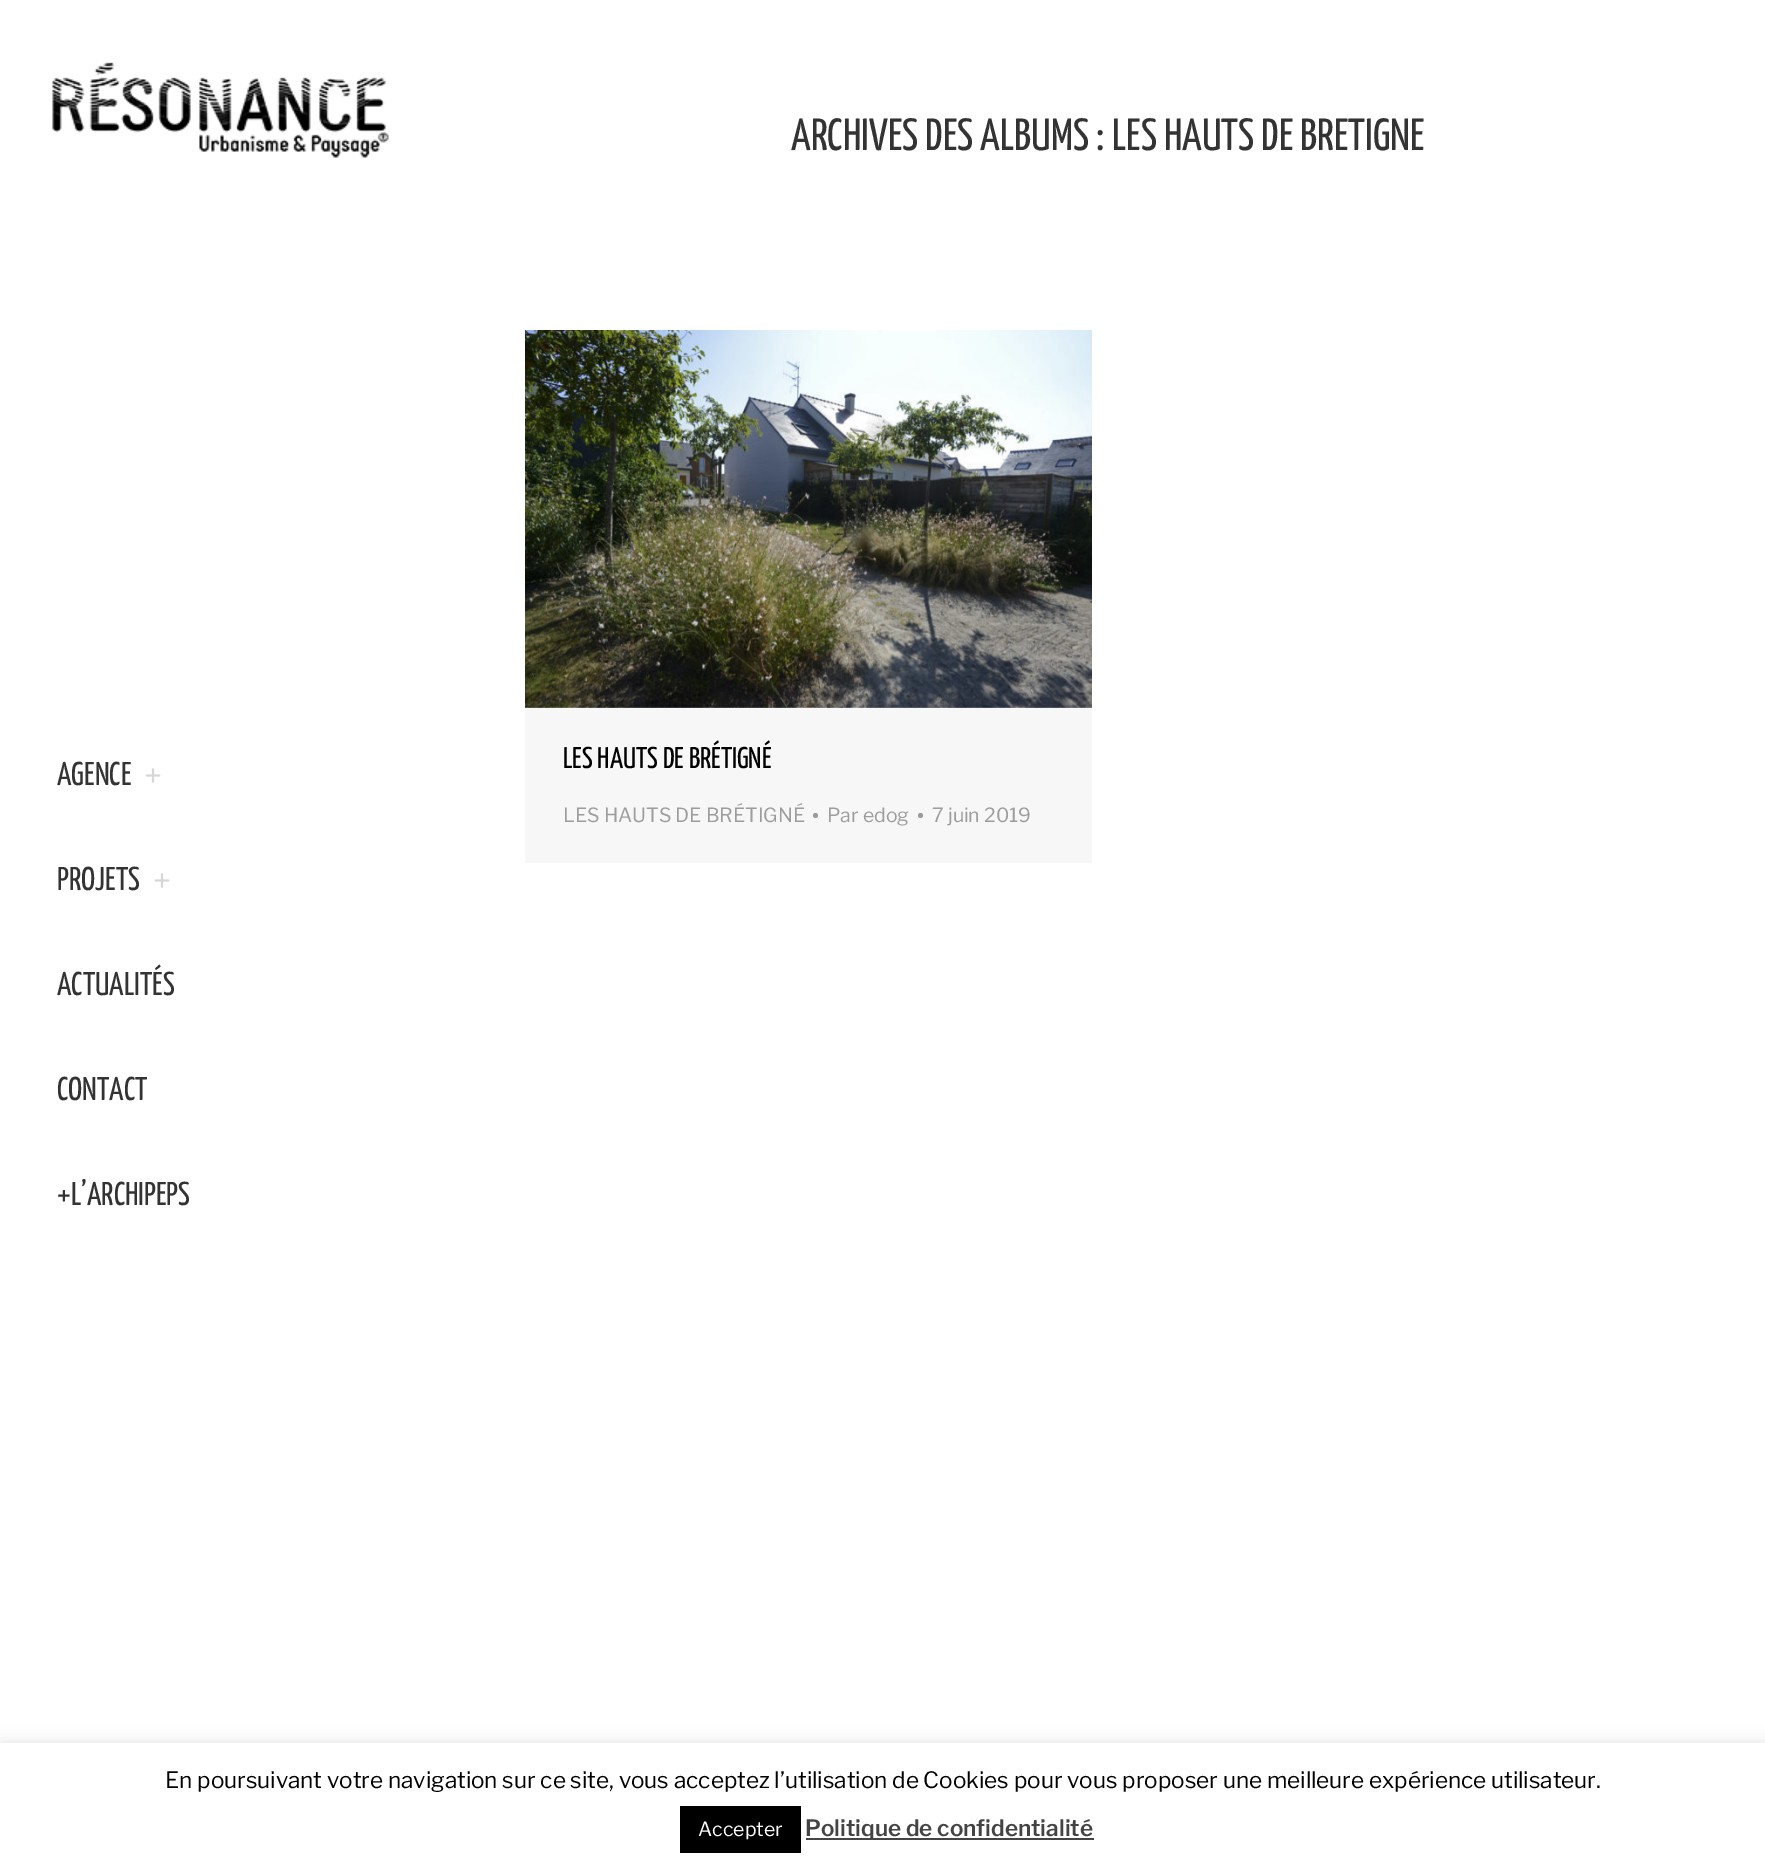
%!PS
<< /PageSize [1765 1870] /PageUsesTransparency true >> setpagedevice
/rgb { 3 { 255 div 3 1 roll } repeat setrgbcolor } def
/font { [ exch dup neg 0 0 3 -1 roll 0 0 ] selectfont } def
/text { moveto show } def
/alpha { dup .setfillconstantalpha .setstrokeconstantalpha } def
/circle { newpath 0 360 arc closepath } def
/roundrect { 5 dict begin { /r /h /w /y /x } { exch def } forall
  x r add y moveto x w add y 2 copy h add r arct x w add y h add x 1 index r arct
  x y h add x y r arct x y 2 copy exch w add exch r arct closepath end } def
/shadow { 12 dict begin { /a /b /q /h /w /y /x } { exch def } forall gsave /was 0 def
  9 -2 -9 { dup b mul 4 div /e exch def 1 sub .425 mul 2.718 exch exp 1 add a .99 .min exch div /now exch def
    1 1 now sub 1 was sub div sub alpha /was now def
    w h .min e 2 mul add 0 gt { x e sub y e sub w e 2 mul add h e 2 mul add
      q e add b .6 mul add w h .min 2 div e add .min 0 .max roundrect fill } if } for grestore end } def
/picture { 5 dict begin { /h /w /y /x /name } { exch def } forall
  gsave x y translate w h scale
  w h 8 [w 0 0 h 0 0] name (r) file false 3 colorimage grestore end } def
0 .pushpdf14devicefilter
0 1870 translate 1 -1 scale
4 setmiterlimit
255 255 255 rgb
0 0 1765 1870 rectfill
(img_01.rgb) 52 62 337 96 picture
(img_02.rgb) 145 768 16 15 picture
(img_02.rgb) 154 873 16 15 picture
247 247 247 rgb
525 707 567 156 rectfill
(img_03.rgb) 525 330 567 378 picture
157 157 156 rgb
815.5 815.5 2.5 circle fill
920.5 815.5 2.5 circle fill
172 171 171 rgb
0 1742 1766 127 0 7.5 0.3 shadow
255 255 255 rgb
0 1743 1765 127 rectfill
0 0 0 rgb
680 1806 121 47 rectfill
68 68 68 rgb
806 1838 288 2 rectfill
/YanoneKaffeesatz-Regular 45 font
51 51 51 rgb
(ARCHIVES DES ALBUMS :) 791 150 text
gsave
792 116 632 46 rectclip
(LES HAUTS DE BRÉTIGNÉ) 1112 150 text
grestore
/YanoneKaffeesatz-Regular 33 font
(AGENCE) 57 785 text
(PROJETS) 57 890 text
(ACTUALITÉS) 57 995 text
(CONTACT) 57 1100 text
(+L’ARCHIPEPS) 57 1205 text
/YanoneKaffeesatz-Regular 30 font
0 0 0 rgb
(LES HAUTS DE BRÉTIGNÉ) 563 768 text
/LibreFranklin-Regular 19.5 font
157 157 156 rgb
(LES HAUTS DE BRÉTIGNÉ) 563 822 text
(Par edog) 827 822 text
(7 juin 2019) 932 822 text
/LibreFranklin-Regular 22.5 font
0 0 0 rgb
(En poursuivant votre navigation sur ce site, vous acceptez l’utilisation de Cookies pour vous proposer une meilleure expérience utilisateur.) 165 1788 text
/LibreFranklin-Regular 19.5 font
255 255 255 rgb
(Accepter) 698 1836 text
/LibreFranklin-SemiBold 22.5 font
68 68 68 rgb
(Politique de confidentialité) 805 1836 text
.poppdf14devicefilter showpage
